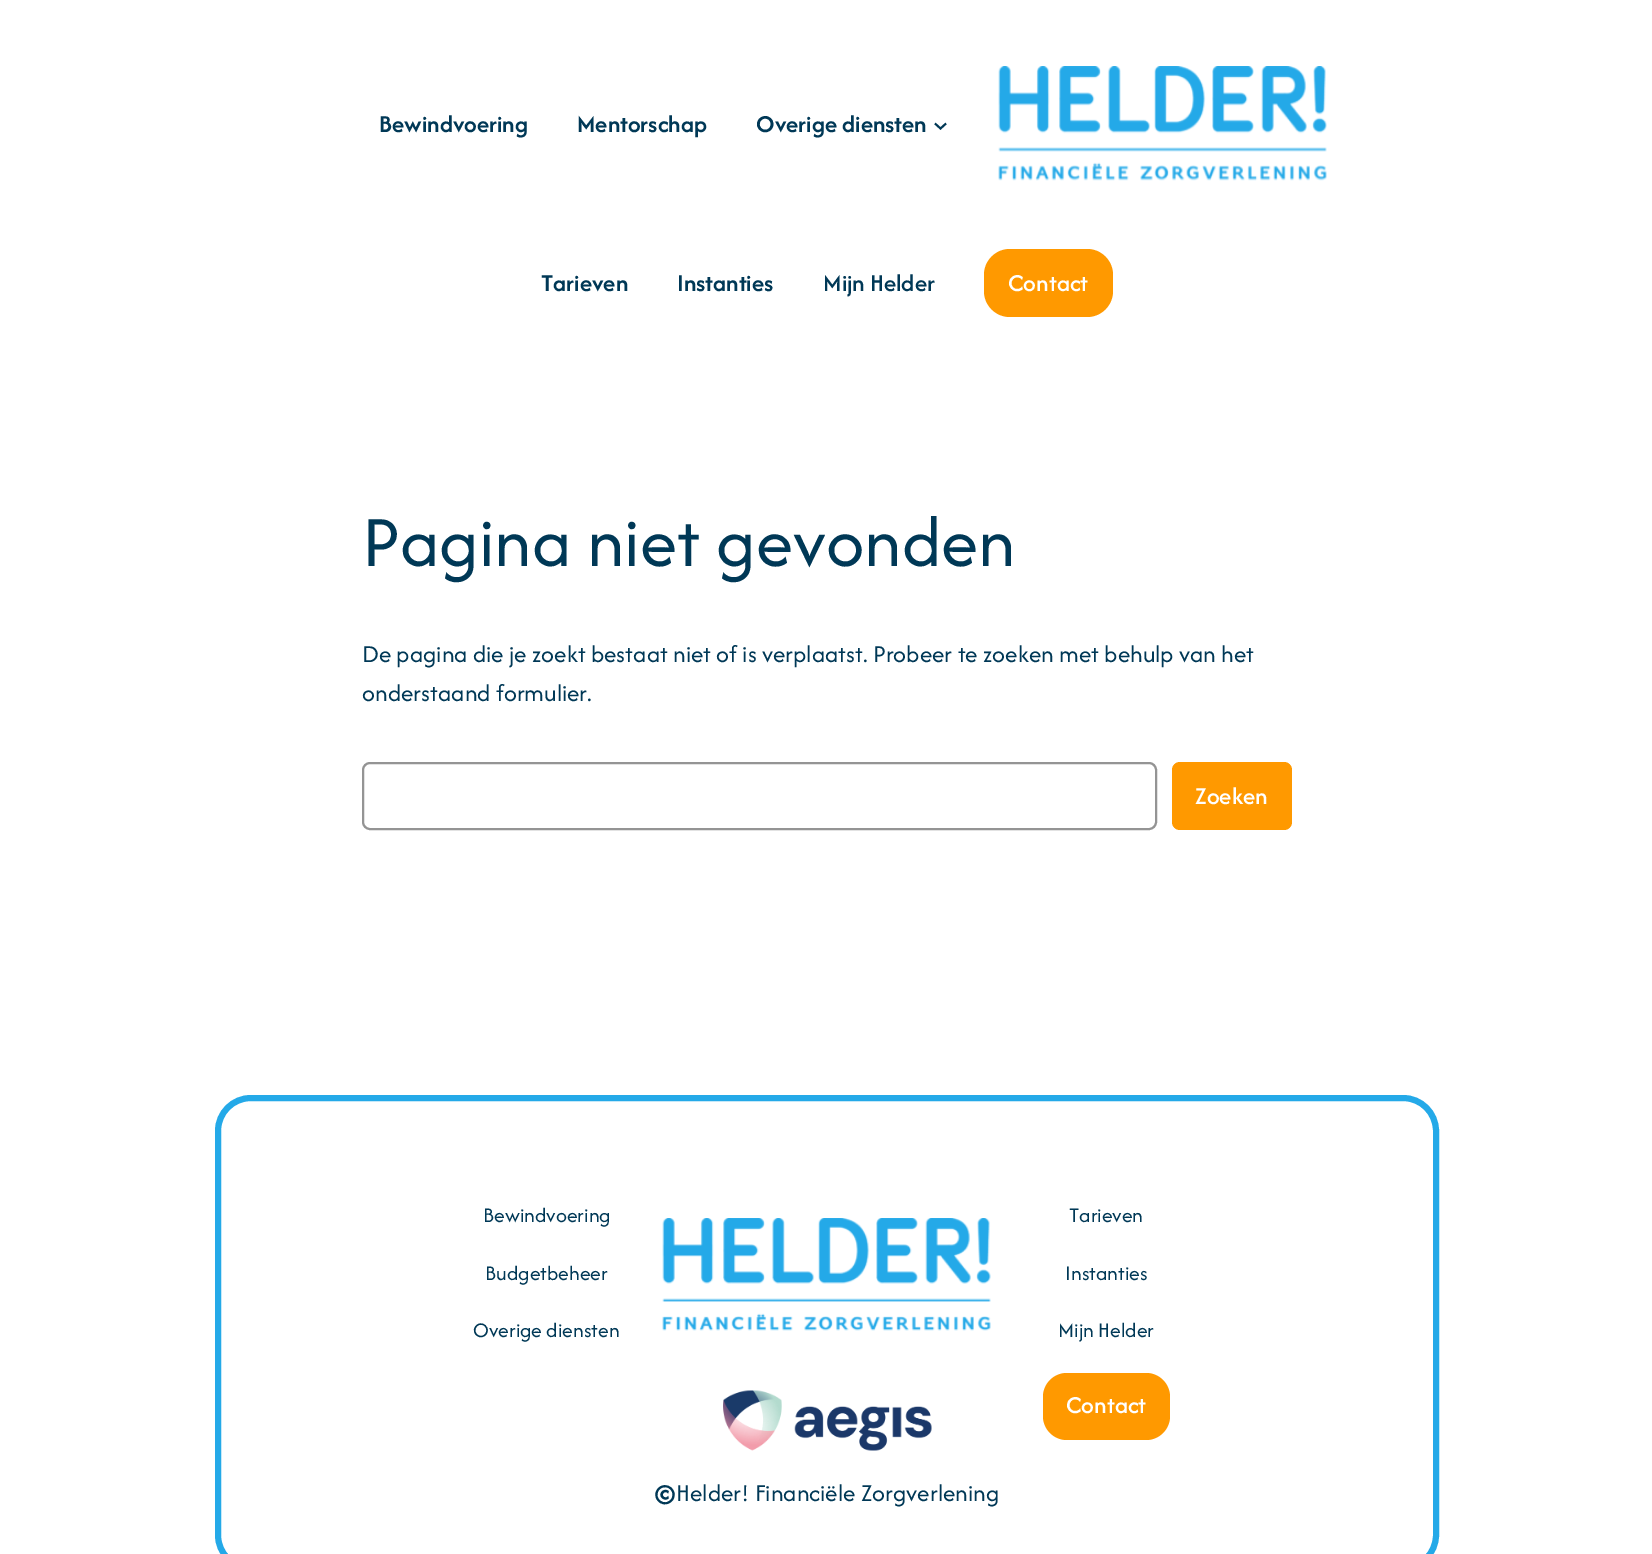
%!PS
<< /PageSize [1652 1554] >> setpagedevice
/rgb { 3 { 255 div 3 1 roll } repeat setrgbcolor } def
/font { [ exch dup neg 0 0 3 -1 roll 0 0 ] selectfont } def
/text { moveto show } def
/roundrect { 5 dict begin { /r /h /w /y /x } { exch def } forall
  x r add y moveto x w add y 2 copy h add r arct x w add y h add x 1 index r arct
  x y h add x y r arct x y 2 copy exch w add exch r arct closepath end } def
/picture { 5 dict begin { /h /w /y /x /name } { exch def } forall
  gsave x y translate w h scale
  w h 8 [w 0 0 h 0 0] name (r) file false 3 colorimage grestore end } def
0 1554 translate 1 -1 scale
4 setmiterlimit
255 255 255 rgb
0 0 1652 1554 rectfill
0 56 86 rgb
1.9 setlinewidth
935 123.5 moveto 5.5 5 rlineto 5.5 -5 rlineto stroke
(img_01.rgb) 998 66 329 115 picture
255 153 0 rgb
984 249 129 68 26 roundrect fill
148 148 148 rgb
2 setlinewidth
363 763 793 66 7 roundrect stroke
255 153 0 rgb
1172 762 120 68 8 roundrect fill
36 169 232 rgb
6 setlinewidth
218 1098 1218 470 33 roundrect stroke
255 153 0 rgb
1043 1373 127 67 24 roundrect fill
(img_02.rgb) 662 1218 329 113 picture
(img_03.rgb) 723 1390 209 61 picture
/Afacad-SemiBold 25.2 font
0 56 86 rgb
(Bewindvoering) 379 132 text
(Mentorschap) 577 132 text
(Overige diensten) 756 132 text
(Tarieven) 541 291 text
(Instanties) 677 291 text
/Afacad-Medium 25.2 font
(Mijn Helder) 823 291 text
255 255 255 rgb
(Contact) 1008 291 text
/Afacad-Regular 75 font
0 56 86 rgb
(Pagina niet gevonden) 362 566 text
/Afacad-Regular 25.2 font
(De pagina die je zoekt bestaat niet of is verplaatst. Probeer te zoeken met behulp van het) 362 662 text
(onderstaand formulier.) 362 701 text
/Afacad-Medium 25.2 font
255 255 255 rgb
(Zoeken) 1195 804 text
/Afacad-Regular 21.5 font
0 56 86 rgb
(Bewindvoering) 483 1222 text
(Budgetbeheer) 485 1280 text
(Overige diensten) 473 1337 text
(Tarieven) 1069 1222 text
(Instanties) 1065 1280 text
(Mijn Helder) 1058 1337 text
/Afacad-Medium 25.2 font
255 255 255 rgb
(Contact) 1066 1413 text
/Afacad-Bold 25.2 font
0 56 86 rgb
(©) 654 1501 text
/Afacad-Regular 25.2 font
(Helder! Financiële Zorgverlening) 676 1501 text
showpage
